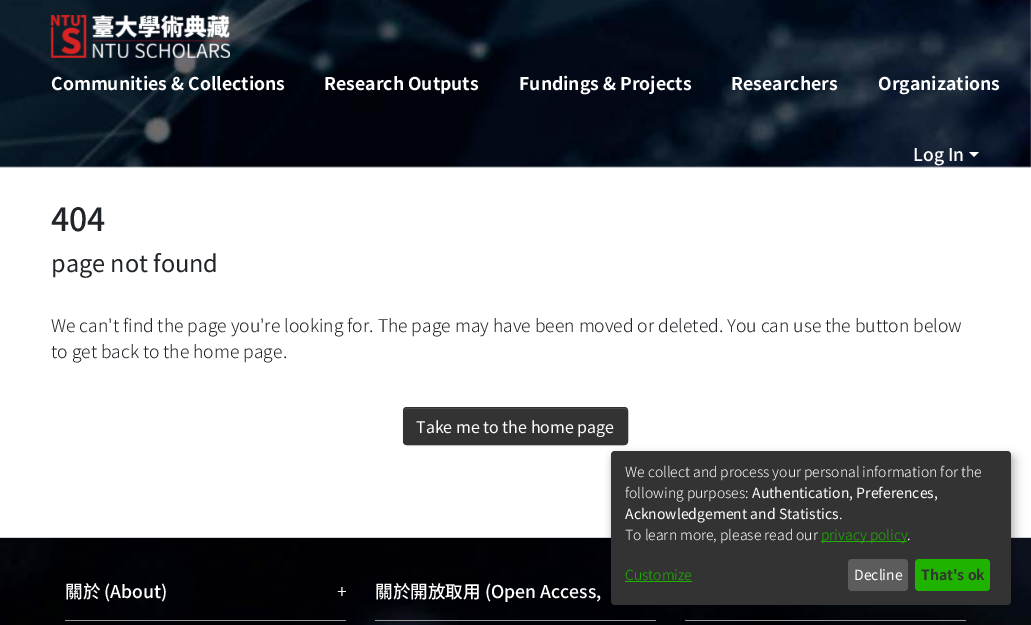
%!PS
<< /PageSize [1031 625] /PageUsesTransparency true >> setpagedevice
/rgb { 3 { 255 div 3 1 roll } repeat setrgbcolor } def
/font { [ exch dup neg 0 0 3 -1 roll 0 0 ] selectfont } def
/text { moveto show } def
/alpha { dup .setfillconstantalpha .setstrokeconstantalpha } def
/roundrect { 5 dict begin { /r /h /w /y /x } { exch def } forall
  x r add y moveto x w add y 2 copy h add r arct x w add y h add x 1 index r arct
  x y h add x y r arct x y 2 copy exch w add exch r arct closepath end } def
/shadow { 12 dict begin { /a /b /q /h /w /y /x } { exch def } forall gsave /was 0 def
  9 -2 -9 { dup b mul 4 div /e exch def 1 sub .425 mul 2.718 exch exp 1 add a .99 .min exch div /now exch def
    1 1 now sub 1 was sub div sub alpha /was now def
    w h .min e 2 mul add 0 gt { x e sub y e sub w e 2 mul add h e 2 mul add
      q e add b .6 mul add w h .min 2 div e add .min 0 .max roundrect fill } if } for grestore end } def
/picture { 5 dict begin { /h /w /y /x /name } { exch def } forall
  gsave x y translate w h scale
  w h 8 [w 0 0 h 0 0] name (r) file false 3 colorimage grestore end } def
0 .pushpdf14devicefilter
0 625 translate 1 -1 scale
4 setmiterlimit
255 255 255 rgb
0 0 1031 625 rectfill
(img_01.rgb) 0 0 1031 168 picture
(img_02.rgb) 50 15 180 43 picture
969 152 moveto 10 0 rlineto -5 5 rlineto closepath fill
0 0 0 rgb
403 408 225 38 4 0.5 0.07 shadow
51 51 51 rgb
403 407 225 38 4 roundrect fill
82 82 82 rgb
407 409 moveto 217 0 rlineto 2 0 3 1 3 3 rcurveto 0 -1 rlineto 0 -2 -1 -3 -3 -3 rcurveto -217 0 rlineto -2 0 -3 1 -3 3 rcurveto 0 1 rlineto 0 -2 1 -3 3 -3 rcurveto closepath fill
51 51 51 rgb
403.5 407.5 224 37 3.5 roundrect stroke
206 212 218 rgb
0 537 1031 1 rectfill
(img_03.rgb) 0 538 1031 87 picture
153 153 153 rgb
65 620 281 1 rectfill
375 620 281 1 rectfill
685 620 281 1 rectfill
0 0 0 rgb
616 456 400 154 4 5 0.19 shadow
611 455 400 154 4 3 0.2 shadow
51 51 51 rgb
611 451 400 154 4 roundrect fill
31 179 0 rgb
821 541 86 1 rectfill
625 581 67 1 rectfill
92 92 92 rgb
848 559 60 32 4 roundrect fill
31 179 0 rgb
915 559 75 32 4 roundrect fill
/NotoSansTC-Bold 17.6 font
255 255 255 rgb
(Communities & Collections) 51 90 text
(Research Outputs) 324 90 text
(Fundings & Projects) 519 90 text
(Researchers) 731 90 text
(Organizations) 878 90 text
/NotoSansTC-Medium 17.6 font
(Log In) 913 161 text
/NotoSansTC-Medium 32 font
33 37 41 rgb
(404) 51 231 text
/NotoSansTC-Regular 23.5 font
(page not found) 51 272 text
/NotoSansTC-Light 17.6 font
(We can't find the page you're looking for. The page may have been moved or deleted. You can use the button below) 51 332 text
(to get back to the home page.) 51 358 text
/NotoSansTC-Regular 16 font
255 255 255 rgb
(Take me to the home page) 416 433 text
/NotoSansTC-Medium 17.6 font
(關於 \(About\)) 65 598 text
/NotoSansTC-Regular 17.6 font
(+) 337 598 text
/NotoSansTC-Medium 17.6 font
(關於開放取用 \(Open Access,) 375 598 text
/NotoSansTC-Light 14 font
(We collect and process your personal information for the) 625 477 text
(following purposes:) 625 498 text
/NotoSansTC-Regular 14 font
(Authentication, Preferences,) 752 498 text
(Acknowledgement and Statistics) 625 519 text
/NotoSansTC-Light 14 font
(.) 839 519 text
(To learn more, please read our) 625 540 text
31 179 0 rgb
(privacy policy) 821 540 text
255 255 255 rgb
(.) 907 540 text
31 179 0 rgb
(Customize) 625 580 text
/NotoSansTC-Regular 14 font
255 255 255 rgb
(Decline) 854 580 text
/NotoSansTC-Bold 14 font
51 51 51 rgb
(That's ok) 921 580 text
.poppdf14devicefilter showpage
